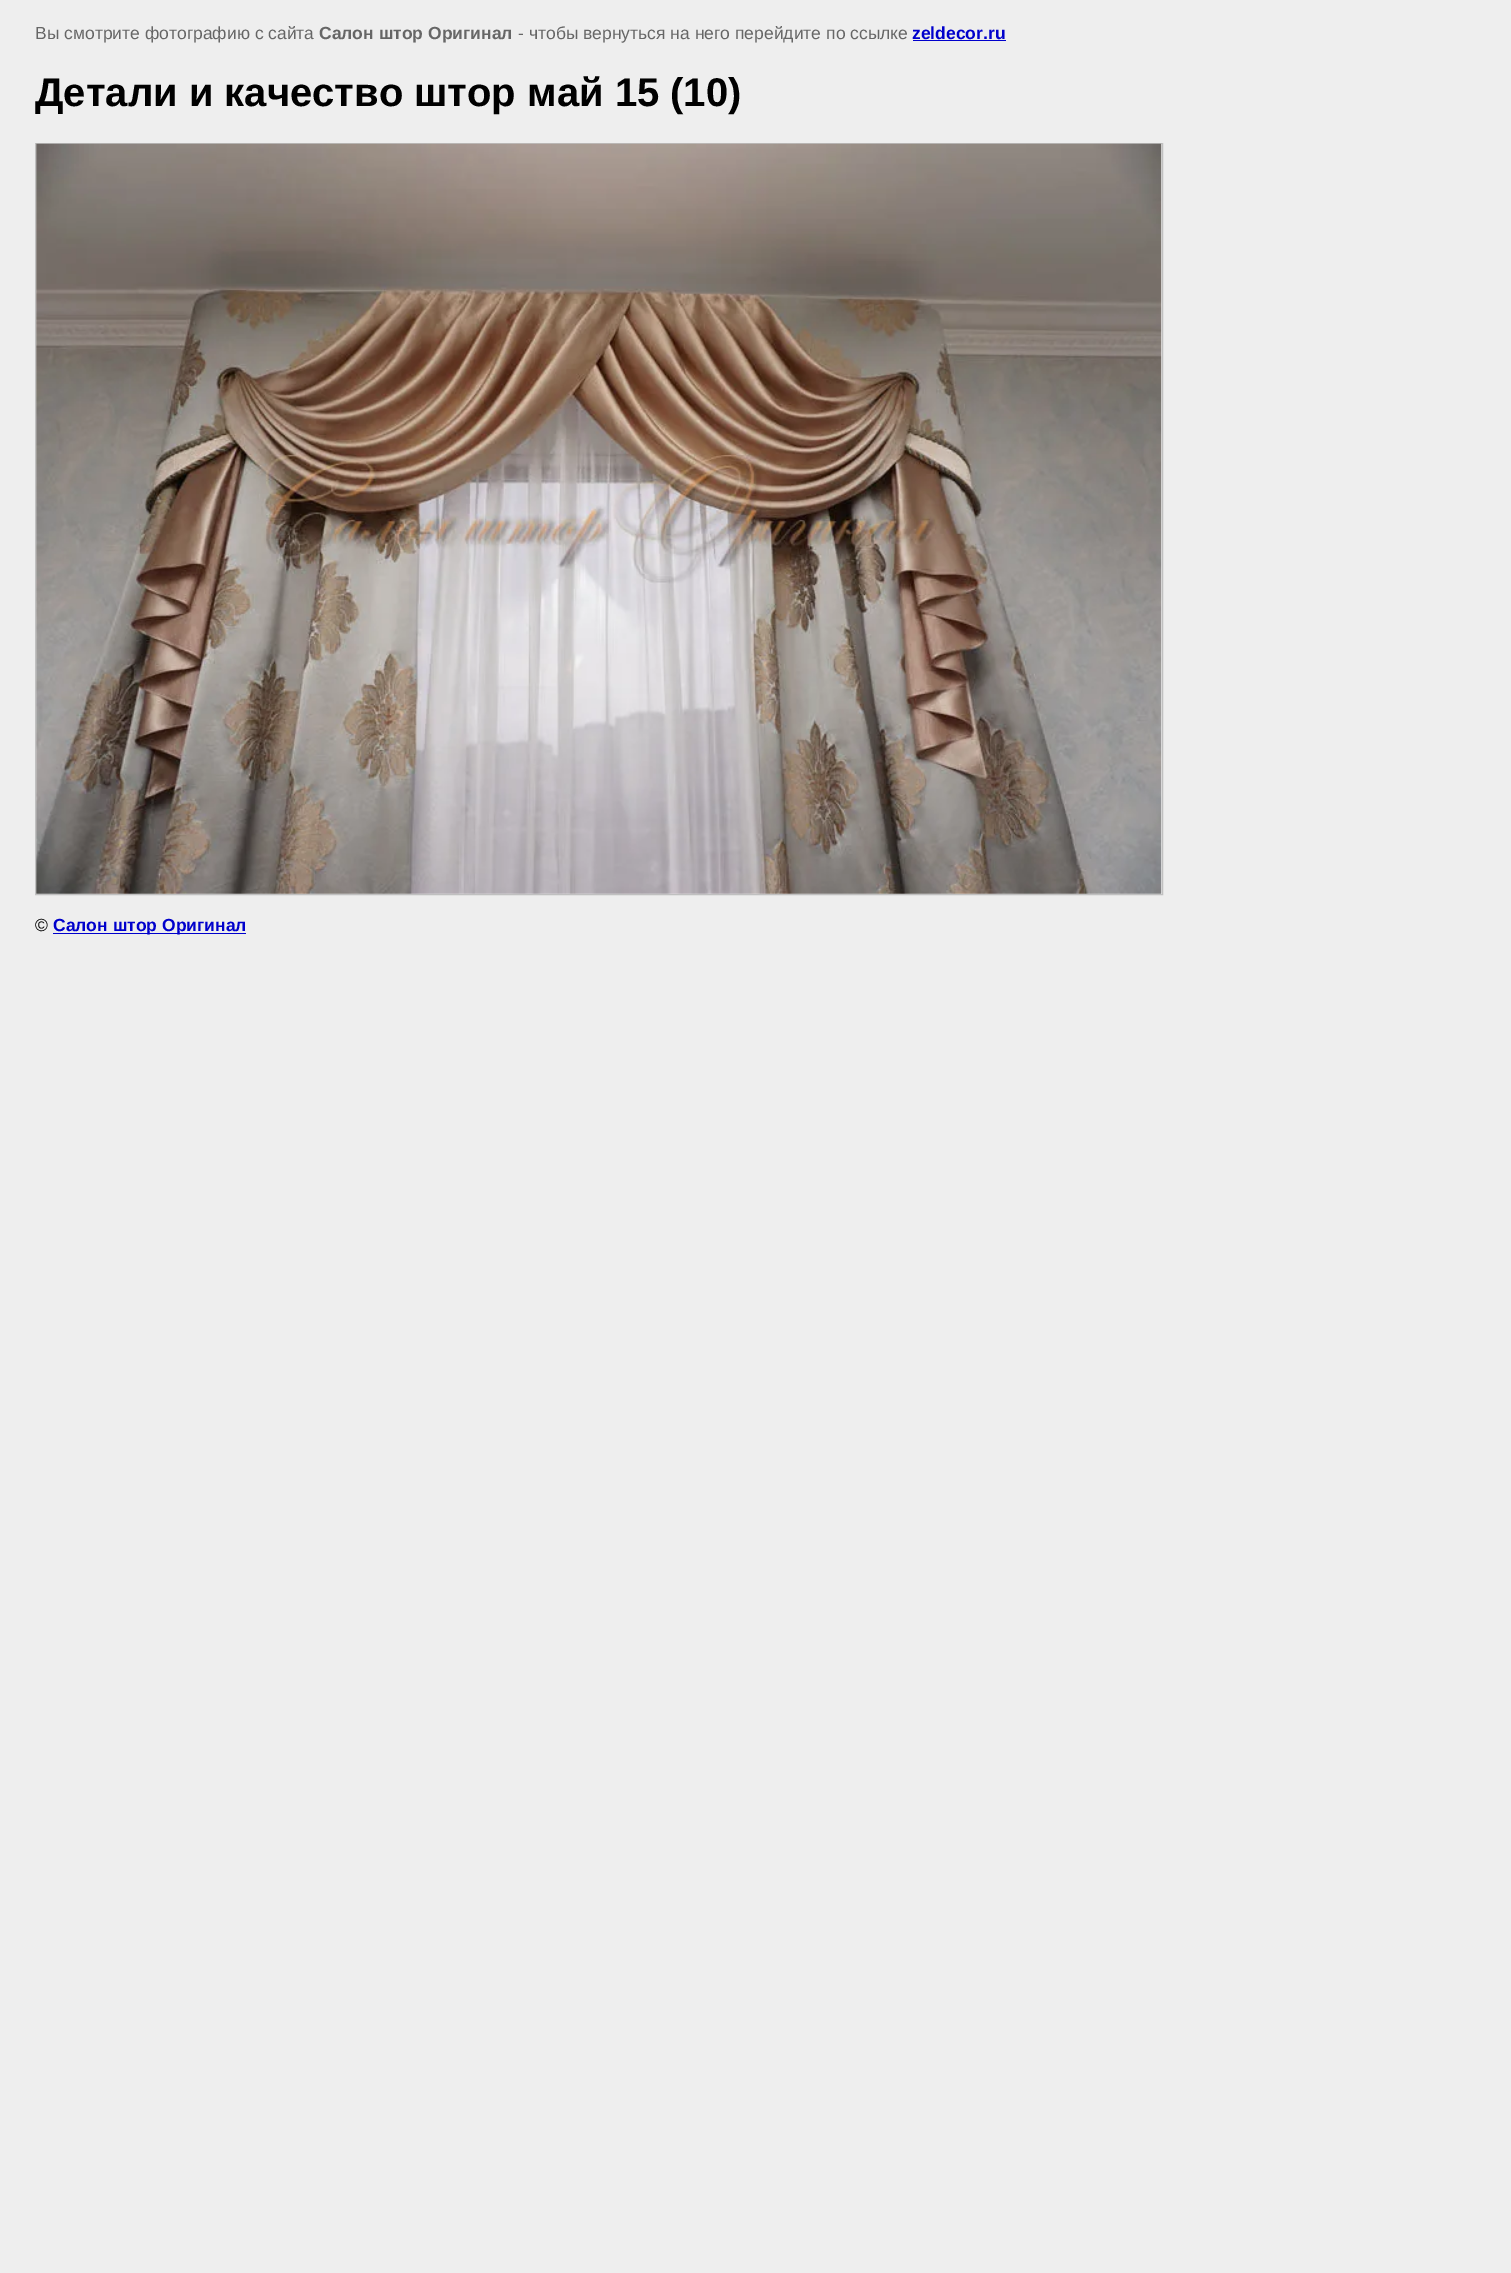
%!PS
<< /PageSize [1511 2273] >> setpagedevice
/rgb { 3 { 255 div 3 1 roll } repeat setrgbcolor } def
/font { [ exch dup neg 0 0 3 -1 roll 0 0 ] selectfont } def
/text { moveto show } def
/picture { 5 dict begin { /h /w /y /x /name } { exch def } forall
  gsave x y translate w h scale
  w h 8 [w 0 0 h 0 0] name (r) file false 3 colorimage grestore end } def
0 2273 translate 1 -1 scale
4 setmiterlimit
238 238 238 rgb
0 0 1511 2273 rectfill
0 0 204 rgb
913 40 93 1 rectfill
192 192 192 rgb
35.5 143.5 1127 751 rectstroke
(img_01.rgb) 36 143 1126 751 picture
0 0 204 rgb
53 933 193 1 rectfill
/LiberationSans-Regular 17.5 font
102 102 102 rgb
(Вы смотрите фотографию с сайта) 35 39 text
/LiberationSans-Bold 17.5 font
(Салон штор Оригинал) 319 39 text
/LiberationSans-Regular 17.5 font
(- чтобы вернуться на него перейдите по ссылке) 518 39 text
/LiberationSans-Bold 17.5 font
0 0 204 rgb
(zeldecor.ru) 912 39 text
/LiberationSans-Bold 40 font
0 0 0 rgb
(Детали и качество штор май 15 \(10\)) 35 106 text
/LiberationSans-Regular 17.5 font
(©) 35 931 text
/LiberationSans-Bold 17.5 font
0 0 204 rgb
(Салон штор Оригинал) 53 931 text
showpage
